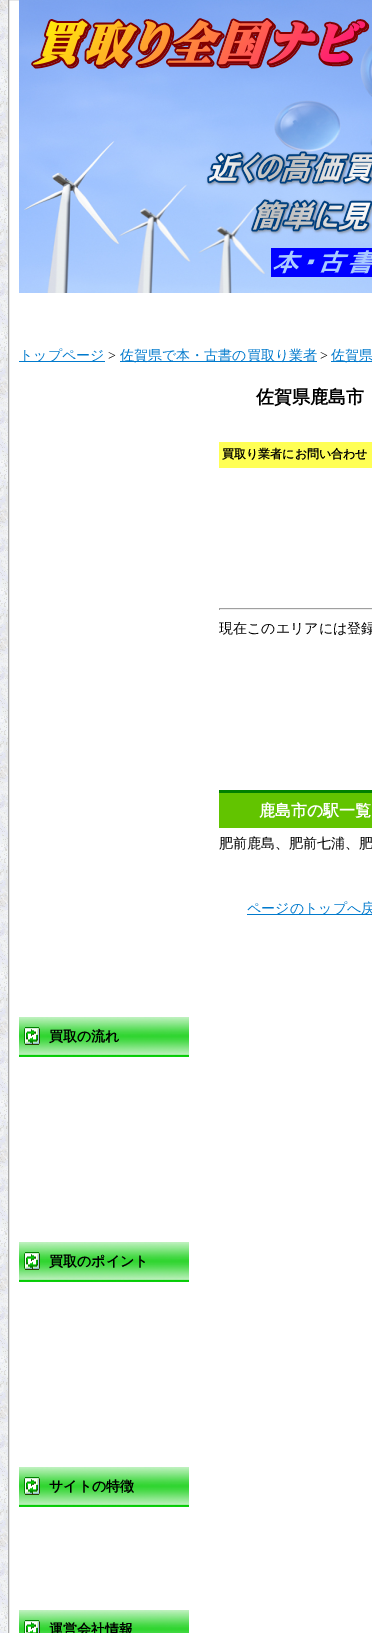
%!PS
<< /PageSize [372 1633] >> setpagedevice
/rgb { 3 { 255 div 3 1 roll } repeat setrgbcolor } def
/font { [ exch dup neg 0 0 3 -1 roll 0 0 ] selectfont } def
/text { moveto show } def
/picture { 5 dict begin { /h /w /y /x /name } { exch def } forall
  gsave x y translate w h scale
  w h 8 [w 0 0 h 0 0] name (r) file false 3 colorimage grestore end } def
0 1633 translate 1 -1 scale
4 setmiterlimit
255 255 255 rgb
0 0 372 1633 rectfill
(img_01.rgb) 0 0 8 1633 picture
170 170 170 rgb
8.5 -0.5 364 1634 rectstroke
(img_02.rgb) 19 0 353 293 picture
1 122 205 rgb
19 361 86 1 rectfill
120 361 197 1 rectfill
331 361 41 1 rectfill
255 255 85 rgb
219 442 153 26 rectfill
159 159 159 rgb
219 608 153 1 rectfill
238 238 238 rgb
219 609 153 1 rectfill
159 159 159 rgb
219 608 1 2 rectfill
98 196 0 rgb
219 793 153 35 rectfill
0 128 0 rgb
219 790 153 3 rectfill
1 122 205 rgb
247 914 125 1 rectfill
(img_03.rgb) 19 1017 170 40 picture
(img_03.rgb) 19 1242 170 40 picture
(img_03.rgb) 19 1467 170 40 picture
(img_04.rgb) 19 1610 170 23 picture
/WenQuanYiZenHei-Medium 14 font
(トップページ) 19 360 text
/LiberationSerif-Regular 14 font
0 0 0 rgb
(>) 108 360 text
/WenQuanYiZenHei-Medium 14 font
1 122 205 rgb
(佐賀県で本・古書の買取り業者) 120 360 text
/LiberationSerif-Regular 14 font
0 0 0 rgb
(>) 320 360 text
/WenQuanYiZenHei-Medium 14 font
1 122 205 rgb
(佐賀県) 331 360 text
/WenQuanYiZenHei-Bold 18 font
0 0 0 rgb
(佐賀県鹿島市) 256 403 text
/WenQuanYiZenHei-Bold 12 font
(買取り業者にお問い合わせ) 222 458 text
/WenQuanYiZenHei-Medium 14 font
(現在このエリアには登録) 219 633 text
/WenQuanYiZenHei-Bold 16 font
255 255 255 rgb
(鹿島市の駅一覧) 259 816 text
/WenQuanYiZenHei-Medium 14 font
0 0 0 rgb
(肥前鹿島、肥前七浦、肥) 219 848 text
1 122 205 rgb
(ページのトップへ戻) 247 913 text
/WenQuanYiZenHei-Bold 14 font
0 0 0 rgb
(買取の流れ) 49 1041 text
(買取のポイント) 49 1266 text
(サイトの特徴) 49 1491 text
(運営会社情報) 49 1634 text
showpage
